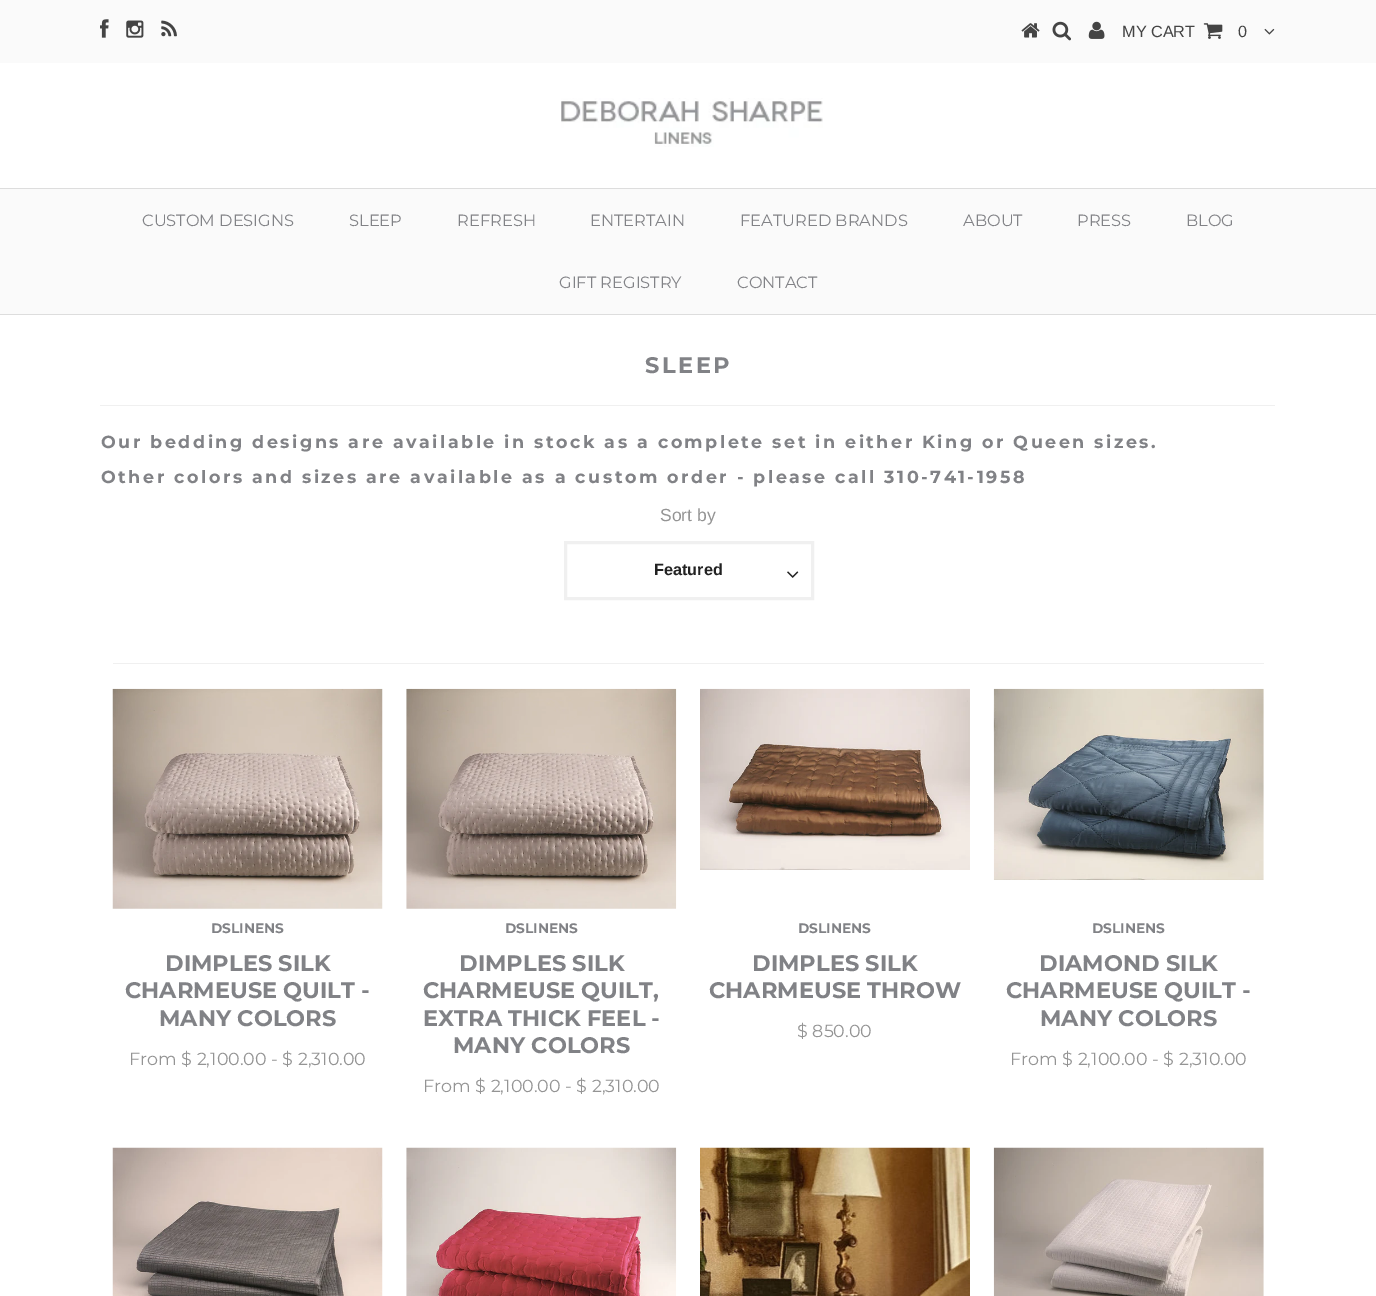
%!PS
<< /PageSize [1376 1296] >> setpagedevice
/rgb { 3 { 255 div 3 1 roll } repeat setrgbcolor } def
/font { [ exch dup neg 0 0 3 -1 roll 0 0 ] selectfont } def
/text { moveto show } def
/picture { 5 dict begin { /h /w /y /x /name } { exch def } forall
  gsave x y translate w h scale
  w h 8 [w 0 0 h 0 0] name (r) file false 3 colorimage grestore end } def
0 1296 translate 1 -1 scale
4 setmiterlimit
255 255 255 rgb
0 0 1376 1296 rectfill
250 250 250 rgb
0 0 1376 63 rectfill
(img_01.rgb) 100 19 9 19 picture
(img_02.rgb) 126 20 18 18 picture
(img_03.rgb) 161 20 16 17 picture
(img_04.rgb) 1021 23 19 15 picture
(img_05.rgb) 1052 21 19 20 picture
(img_06.rgb) 1088 21 17 18 picture
(img_07.rgb) 1203 23 20 16 picture
(img_08.rgb) 1264 28 11 7 picture
(img_09.rgb) 561 98 262 49 picture
0 189 1376 125 rectfill
221 221 221 rgb
0 188 1376 1 rectfill
0 314 1376 1 rectfill
240 240 240 rgb
100 405 1175 1 rectfill
113 663 1151 1 rectfill
3 setlinewidth
565.5 542.5 247 56 rectstroke
(img_10.rgb) 787 571 12 7 picture
(img_11.rgb) 112 688 271 221 picture
(img_12.rgb) 406 688 271 221 picture
(img_13.rgb) 700 688 270 182 picture
(img_14.rgb) 993 688 271 192 picture
(img_15.rgb) 112 1147 271 149 picture
(img_16.rgb) 406 1147 271 149 picture
(img_17.rgb) 700 1147 270 149 picture
(img_18.rgb) 993 1147 271 149 picture
/LiberationSans-Regular 16.25 font
68 68 68 rgb
(MY CART) 1122 37 text
(0) 1238 37 text
/Montserrat-Regular 16.25 font
129 130 134 rgb
(CUSTOM DESIGNS) 142 226 text
(SLEEP) 349 226 text
(REFRESH) 457 226 text
(ENTERTAIN) 590 226 text
(FEATURED BRANDS) 740 226 text
(ABOUT) 963 226 text
(PRESS) 1077 226 text
(BLOG) 1186 226 text
(GIFT REGISTRY) 559 288 text
(CONTACT) 737 288 text
/Montserrat-Bold 22.5 font
645 373 moveto 2.5 0 (SLEEP) ashow
/Montserrat-Bold 17.5 font
101 448 moveto 2.5 0 (Our bedding designs are available in stock as a complete set in either King or Queen sizes.) ashow
101 483 moveto 2.5 0 (Other colors and sizes are available as a custom order - please call 310-741-1958) ashow
/LiberationSans-Regular 17.5 font
148 148 148 rgb
(Sort by) 660 521 text
/LiberationSans-Bold 16.25 font
34 34 34 rgb
(Featured) 654 575 text
/Montserrat-Bold 13.75 font
129 130 134 rgb
(DSLINENS) 211 933 text
/Montserrat-Bold 22.5 font
(DIMPLES SILK) 165 971 text
(CHARMEUSE QUILT -) 125 998 text
(MANY COLORS) 159 1026 text
/Montserrat-Regular 17.5 font
148 148 148 rgb
(From $ 2,100.00 - $ 2,310.00) 129 1065 text
/Montserrat-Bold 13.75 font
129 130 134 rgb
(DSLINENS) 505 933 text
/Montserrat-Bold 22.5 font
(DIMPLES SILK) 459 971 text
(CHARMEUSE QUILT,) 423 998 text
(EXTRA THICK FEEL -) 423 1026 text
(MANY COLORS) 453 1053 text
/Montserrat-Regular 17.5 font
148 148 148 rgb
(From $ 2,100.00 - $ 2,310.00) 423 1092 text
/Montserrat-Bold 13.75 font
129 130 134 rgb
(DSLINENS) 798 933 text
/Montserrat-Bold 22.5 font
(DIMPLES SILK) 752 971 text
(CHARMEUSE THROW) 709 998 text
/Montserrat-Regular 17.5 font
148 148 148 rgb
($ 850.00) 797 1037 text
/Montserrat-Bold 13.75 font
129 130 134 rgb
(DSLINENS) 1092 933 text
/Montserrat-Bold 22.5 font
(DIAMOND SILK) 1039 971 text
(CHARMEUSE QUILT -) 1006 998 text
(MANY COLORS) 1040 1026 text
/Montserrat-Regular 17.5 font
148 148 148 rgb
(From $ 2,100.00 - $ 2,310.00) 1010 1065 text
showpage
